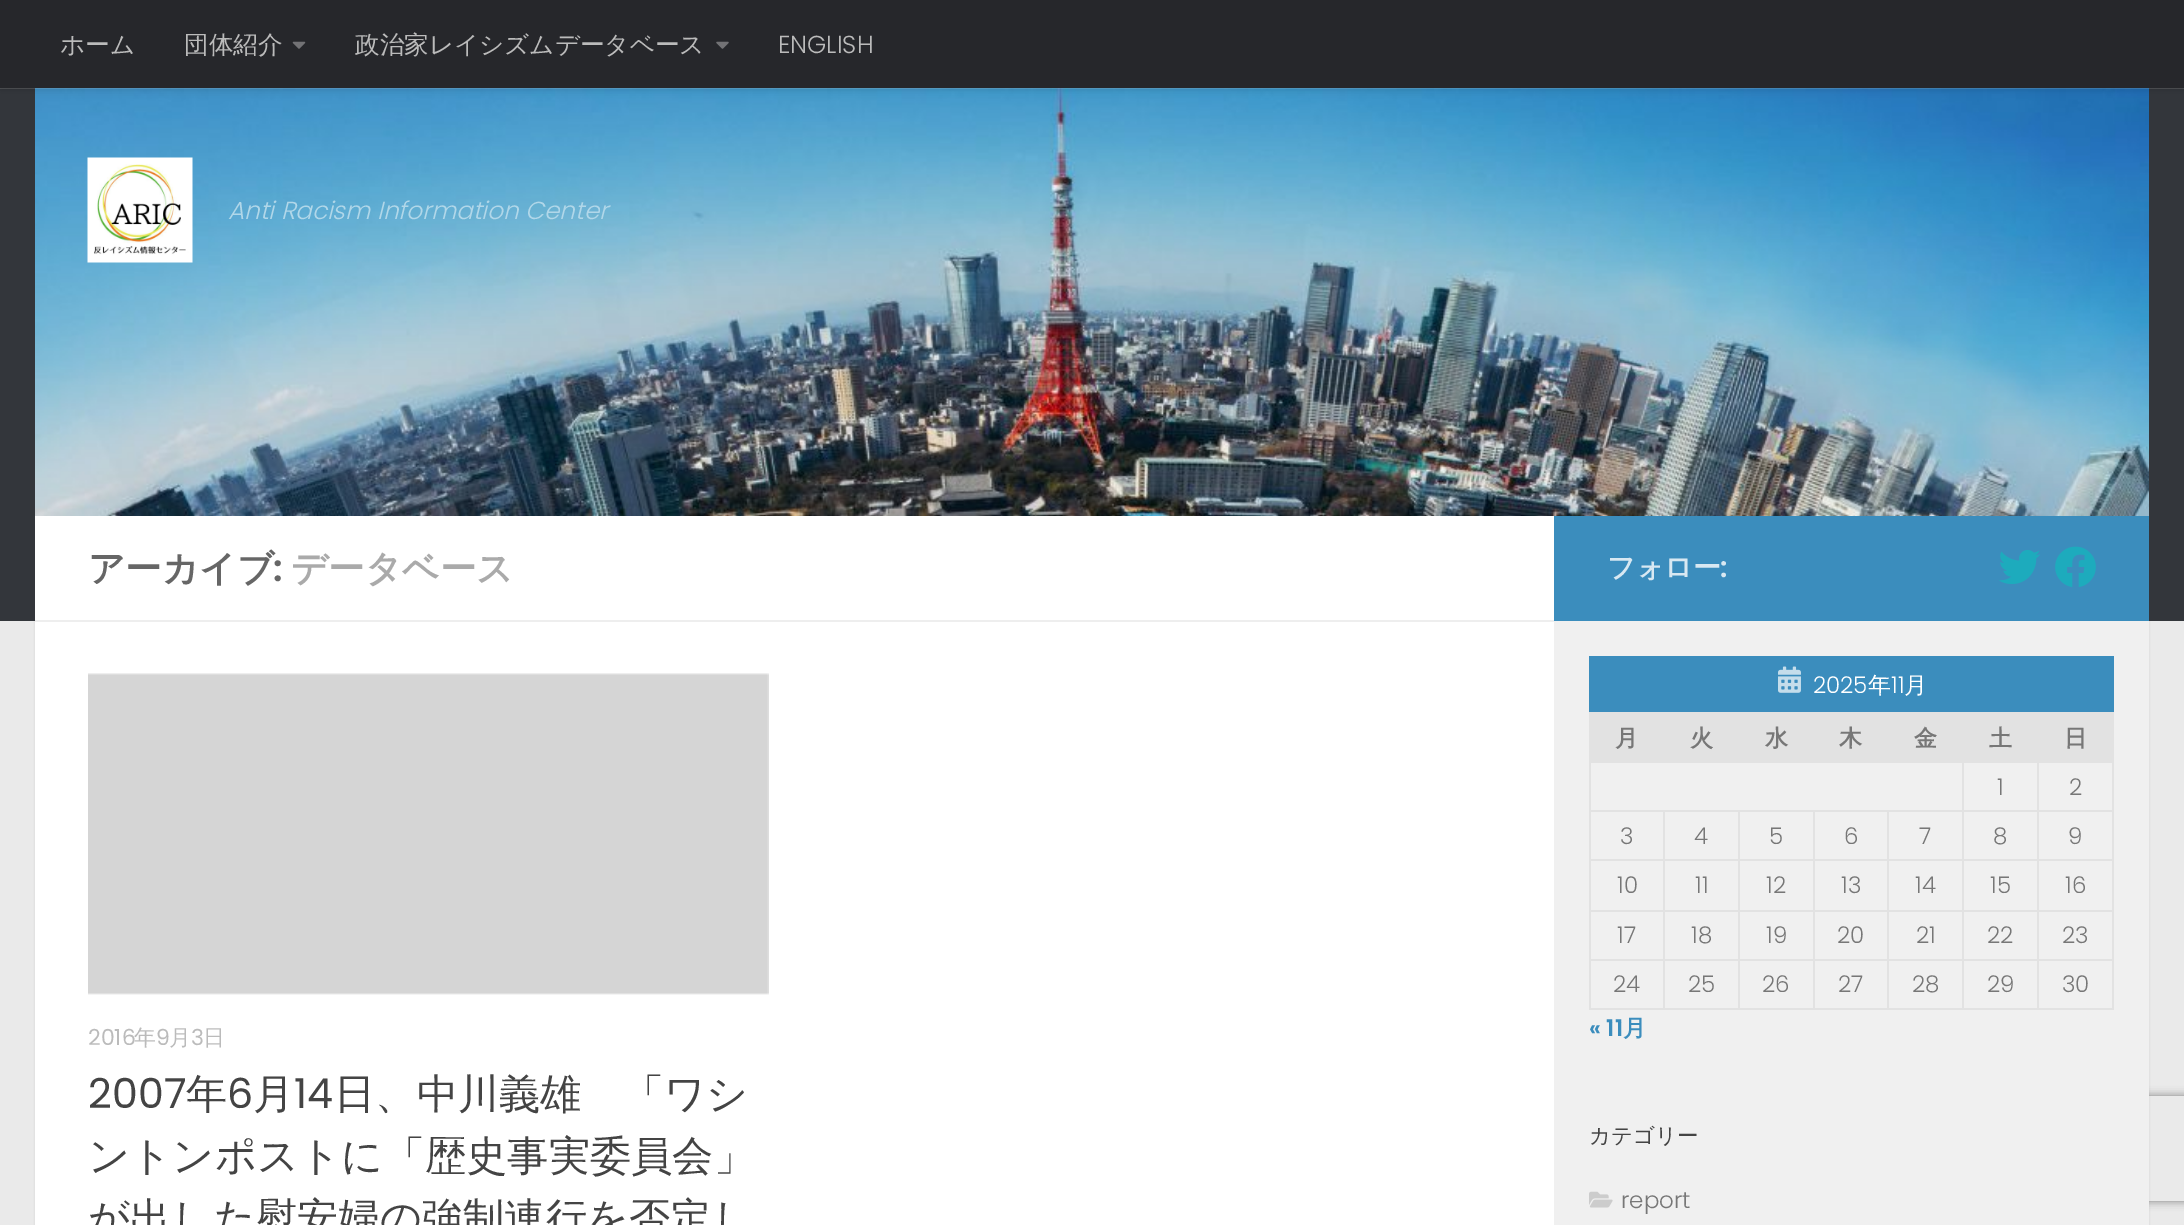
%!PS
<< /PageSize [2184 1225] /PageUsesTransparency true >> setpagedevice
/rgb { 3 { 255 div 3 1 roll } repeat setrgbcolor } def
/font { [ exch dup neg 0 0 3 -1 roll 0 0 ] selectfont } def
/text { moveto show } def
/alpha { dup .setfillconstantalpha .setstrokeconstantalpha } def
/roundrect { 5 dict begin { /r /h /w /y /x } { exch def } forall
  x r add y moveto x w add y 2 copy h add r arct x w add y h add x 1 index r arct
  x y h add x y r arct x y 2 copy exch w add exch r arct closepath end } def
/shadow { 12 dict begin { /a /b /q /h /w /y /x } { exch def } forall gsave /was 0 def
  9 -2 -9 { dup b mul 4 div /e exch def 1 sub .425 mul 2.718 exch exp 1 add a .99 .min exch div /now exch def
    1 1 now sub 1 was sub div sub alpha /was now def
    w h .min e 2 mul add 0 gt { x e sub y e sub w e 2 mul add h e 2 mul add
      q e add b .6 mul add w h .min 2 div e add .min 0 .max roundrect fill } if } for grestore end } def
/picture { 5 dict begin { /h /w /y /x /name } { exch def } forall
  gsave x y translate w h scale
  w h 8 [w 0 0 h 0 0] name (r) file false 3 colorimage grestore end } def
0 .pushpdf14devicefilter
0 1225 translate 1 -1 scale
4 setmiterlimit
234 234 234 rgb
0 0 2184 1225 rectfill
0 0 0 rgb
35 518 2114 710 0 1 0.1 shadow
51 54 59 rgb
0 88 2184 533 rectfill
(img_03.rgb) 35 88 2114 428 picture
0.15 alpha
255 255 255 rgb
0 88 2184 1 rectfill
1 alpha
0 0 0 rgb
0 0 2184 88 0 4.5 0.2 shadow
38 39 43 rgb
0 0 2184 88 rectfill
(img_01.rgb) 292 41 14 8 picture
(img_02.rgb) 716 41 13 8 picture
(img_04.rgb) 87 157 106 106 picture
255 255 255 rgb
35 516 1519 709 rectfill
238 238 238 rgb
35 620 1519 2 rectfill
(img_05.rgb) 88 673 681 322 picture
gsave
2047 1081 moveto 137 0 rlineto 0 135 rlineto -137 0 rlineto closepath 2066 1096 moveto 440 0 rlineto 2 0 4 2 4 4 rcurveto 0 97 rlineto 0 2 -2 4 -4 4 rcurveto -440 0 rlineto -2 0 -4 -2 -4 -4 rcurveto 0 -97 rlineto 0 -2 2 -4 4 -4 rcurveto closepath eoclip newpath
128 128 128 rgb
2062 1096 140 105 4 4.5 1 shadow
grestore
240 240 240 rgb
1554 621 595 604 rectfill
59 141 189 rgb
1554 516 595 105 rectfill
(img_06.rgb) 1999 550 41 34 picture
(img_07.rgb) 2055 546 41 41 picture
1589 656 525 56 rectfill
(img_08.rgb) 1778 666 23 27 picture
226 226 226 rgb
1591 714 523 47 rectfill
1589 712 525 2 rectfill
2037 761 77 2 rectfill
2037 810 77 2 rectfill
2037 859 77 2 rectfill
2037 910 77 2 rectfill
2037 959 77 2 rectfill
2112 959 2 51 rectfill
2037 1008 77 2 rectfill
2037 959 2 51 rectfill
1962 959 77 2 rectfill
2037 910 2 51 rectfill
1962 910 77 2 rectfill
2037 859 2 53 rectfill
1962 859 77 2 rectfill
2037 810 2 51 rectfill
1962 810 77 2 rectfill
2037 761 2 51 rectfill
1962 761 77 2 rectfill
1962 1008 77 2 rectfill
1962 959 2 51 rectfill
1887 959 77 2 rectfill
1962 910 2 51 rectfill
1887 910 77 2 rectfill
1962 859 2 53 rectfill
1887 859 77 2 rectfill
1962 810 2 51 rectfill
1887 810 77 2 rectfill
1962 761 2 51 rectfill
1589 761 375 2 rectfill
1887 1008 77 2 rectfill
1887 959 2 51 rectfill
1813 959 75 2 rectfill
1887 910 2 51 rectfill
1813 910 75 2 rectfill
1887 859 2 53 rectfill
1813 859 75 2 rectfill
1887 810 2 51 rectfill
1813 810 75 2 rectfill
1813 1008 75 2 rectfill
1813 959 2 51 rectfill
1738 959 77 2 rectfill
1813 910 2 51 rectfill
1738 910 77 2 rectfill
1813 859 2 53 rectfill
1738 859 77 2 rectfill
1813 810 2 51 rectfill
1738 810 77 2 rectfill
1738 1008 77 2 rectfill
1738 959 2 51 rectfill
1663 959 77 2 rectfill
1738 910 2 51 rectfill
1663 910 77 2 rectfill
1738 859 2 53 rectfill
1663 859 77 2 rectfill
1738 810 2 51 rectfill
1663 810 77 2 rectfill
1663 1008 77 2 rectfill
1663 959 2 51 rectfill
1589 959 75 2 rectfill
1663 910 2 51 rectfill
1589 910 75 2 rectfill
1663 859 2 53 rectfill
1589 859 75 2 rectfill
1663 810 2 51 rectfill
1589 810 75 2 rectfill
1589 1008 75 2 rectfill
1589 959 2 51 rectfill
1589 910 2 51 rectfill
1589 859 2 53 rectfill
1589 810 2 51 rectfill
1589 761 2 51 rectfill
1589 712 2 51 rectfill
2112 910 2 51 rectfill
2112 859 2 53 rectfill
2112 810 2 51 rectfill
2112 761 2 51 rectfill
(img_09.rgb) 1589 1191 24 17 picture
/WenQuanYiZenHei-Medium 24.6 font
187 187 187 rgb
(ホーム) 60 53 text
(団体紹介) 184 53 text
(政治家レイシズムデータベース) 355 53 text
/Poppins-Light 24.6 font
(ENGLISH) 778 53 text
/Poppins-LightItalic 24.6 font
177 215 233 rgb
(Anti Racism Information Center) 228 219 text
/WenQuanYiZenHei-Bold 36.5 font
102 102 102 rgb
(アーカイブ) 88 581 text
/Poppins-SemiBold 36.5 font
(:) 273 581 text
/WenQuanYiZenHei-Bold 36.5 font
170 170 170 rgb
(データベース) 291 581 text
/Poppins-Regular 22 font
187 187 187 rgb
(2016) 88 1045 text
/WenQuanYiZenHei-Medium 22 font
(年) 134 1045 text
/Poppins-Regular 22 font
(9) 156 1045 text
/WenQuanYiZenHei-Medium 22 font
(月) 169 1045 text
/Poppins-Regular 22 font
(3) 191 1045 text
/WenQuanYiZenHei-Medium 22 font
(日) 203 1045 text
/Poppins-Regular 41.25 font
68 68 68 rgb
(2007) 88 1108 text
/WenQuanYiZenHei-Medium 41.25 font
(年) 186 1108 text
/Poppins-Regular 41.25 font
(6) 227 1108 text
/WenQuanYiZenHei-Medium 41.25 font
(月) 253 1108 text
/Poppins-Regular 41.25 font
(14) 294 1108 text
/WenQuanYiZenHei-Medium 41.25 font
(日、中川義雄　「ワシ) 334 1108 text
(ントンポストに「歴史事実委員会」) 88 1170 text
(が出した慰安婦の強制連行を否定し) 88 1232 text
/WenQuanYiZenHei-Bold 28 font
216 232 242 rgb
(フォロー) 1607 577 text
/Poppins-SemiBold 28 font
(:) 1720 577 text
/Poppins-Light 23 font
255 255 255 rgb
(2025) 1813 693 text
/WenQuanYiZenHei-Medium 23 font
(年) 1868 693 text
/Poppins-Light 23 font
(11) 1891 693 text
/WenQuanYiZenHei-Medium 23 font
(月) 1904 693 text
/WenQuanYiZenHei-Bold 23 font
119 119 119 rgb
(月) 1615 746 text
(火) 1690 746 text
(水) 1765 746 text
(木) 1839 746 text
(金) 1914 746 text
(土) 1989 746 text
(日) 2064 746 text
/Poppins-Light 23 font
(1) 1997 795 text
(2) 2069 795 text
(3) 1620 844 text
(4) 1694 844 text
(5) 1769 844 text
(6) 1844 844 text
(7) 1919 844 text
(8) 1993 844 text
(9) 2068 844 text
(10) 1617 893 text
(11) 1695 893 text
(12) 1766 893 text
(13) 1841 893 text
(14) 1915 893 text
(15) 1990 893 text
(16) 2065 893 text
(17) 1617 943 text
(18) 1691 943 text
(19) 1766 943 text
(20) 1837 943 text
(21) 1916 943 text
(22) 1987 943 text
(23) 2062 943 text
(24) 1613 992 text
(25) 1688 992 text
(26) 1762 992 text
(27) 1838 992 text
(28) 1912 992 text
(29) 1987 992 text
(30) 2062 992 text
/Poppins-SemiBold 23 font
59 141 189 rgb
(« 11) 1589 1036 text
/WenQuanYiZenHei-Bold 23 font
(月) 1623 1036 text
/WenQuanYiZenHei-Medium 21.5 font
68 68 68 rgb
(カテゴリー) 1589 1143 text
/Poppins-Light 23 font
119 119 119 rgb
(report) 1621 1208 text
.poppdf14devicefilter showpage
